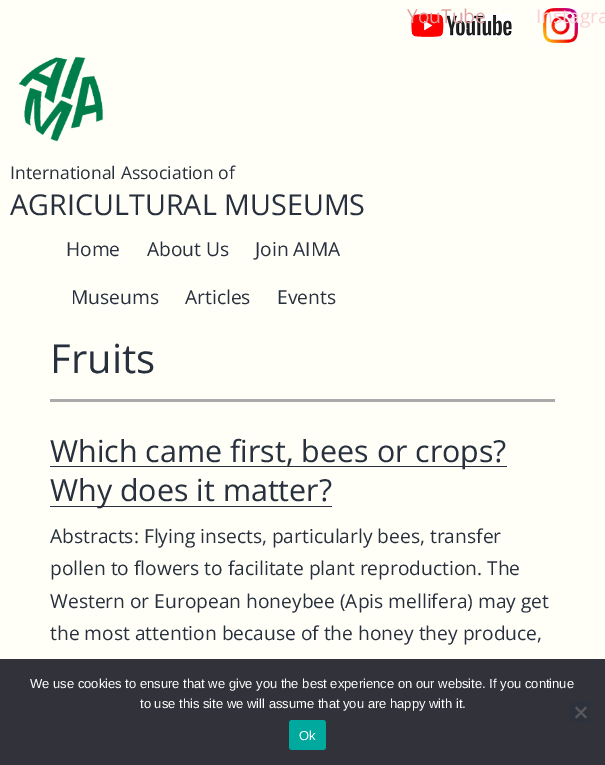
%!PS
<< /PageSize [605 765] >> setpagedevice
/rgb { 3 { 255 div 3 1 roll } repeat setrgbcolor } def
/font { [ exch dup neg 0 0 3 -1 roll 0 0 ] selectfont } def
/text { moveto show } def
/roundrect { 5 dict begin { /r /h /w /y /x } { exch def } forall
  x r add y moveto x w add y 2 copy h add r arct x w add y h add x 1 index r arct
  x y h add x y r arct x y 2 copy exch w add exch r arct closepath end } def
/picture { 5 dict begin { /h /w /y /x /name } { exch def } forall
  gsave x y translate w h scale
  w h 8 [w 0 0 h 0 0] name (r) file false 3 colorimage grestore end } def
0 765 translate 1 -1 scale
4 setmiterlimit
255 255 248 rgb
0 0 605 765 rectfill
(img_01.rgb) 411 14 101 23 picture
(img_02.rgb) 543 8 35 35 picture
(img_03.rgb) 19 56 84 86 picture
170 170 170 rgb
50 399 505 3 rectfill
40 48 61 rgb
50 466 457 1 rectfill
50 506 282 1 rectfill
50 50 58 rgb
0 659 605 106 rectfill
45 49 60 rgb
570 702 20 20 2 roundrect fill
89 89 93 rgb
585.5 706.5 moveto 1.5 1.5 rlineto -10.5 10.5 rlineto -1.5 -1.5 rlineto closepath fill
575 708 moveto 1.5 -1.5 rlineto 10.5 10.5 rlineto -1.5 1.5 rlineto closepath fill
0 169 157 rgb
289 720 37 30 3 roundrect fill
/OpenSans-Regular 19.2 font
222 160 158 rgb
(YouTube) 407 23 text
249 210 214 rgb
(Instagra) 536 23 text
/OpenSans-Regular 17.6 font
40 48 61 rgb
(International Association of) 10 179 text
/OpenSans-Regular 28.75 font
(AGRICULTURAL MUSEUMS) 10 215 text
/OpenSans-Regular 19.2 font
(Home) 66 256 text
(About Us) 147 256 text
(Join AIMA) 255 256 text
(Museums) 71 304 text
(Articles) 185 304 text
(Events) 277 304 text
/OpenSans-Regular 40 font
(Fruits) 50 373 text
/OpenSans-Regular 30.4 font
(Which came first, bees or crops?) 50 462 text
(Why does it matter?) 50 501 text
/OpenSans-Regular 19.2 font
(Abstracts: Flying insects, particularly bees, transfer) 50 543 text
(pollen to flowers to facilitate plant reproduction. The) 50 575 text
(Western or European honeybee \(Apis mellifera\) may get) 50 608 text
(the most attention because of the honey they produce,) 50 640 text
/LiberationSans-Regular 13 font
255 255 255 rgb
(We use cookies to ensure that we give you the best experience on our website. If you continue) 30 688 text
(to use this site we will assume that you are happy with it.) 140 708 text
(Ok) 299 740 text
showpage
